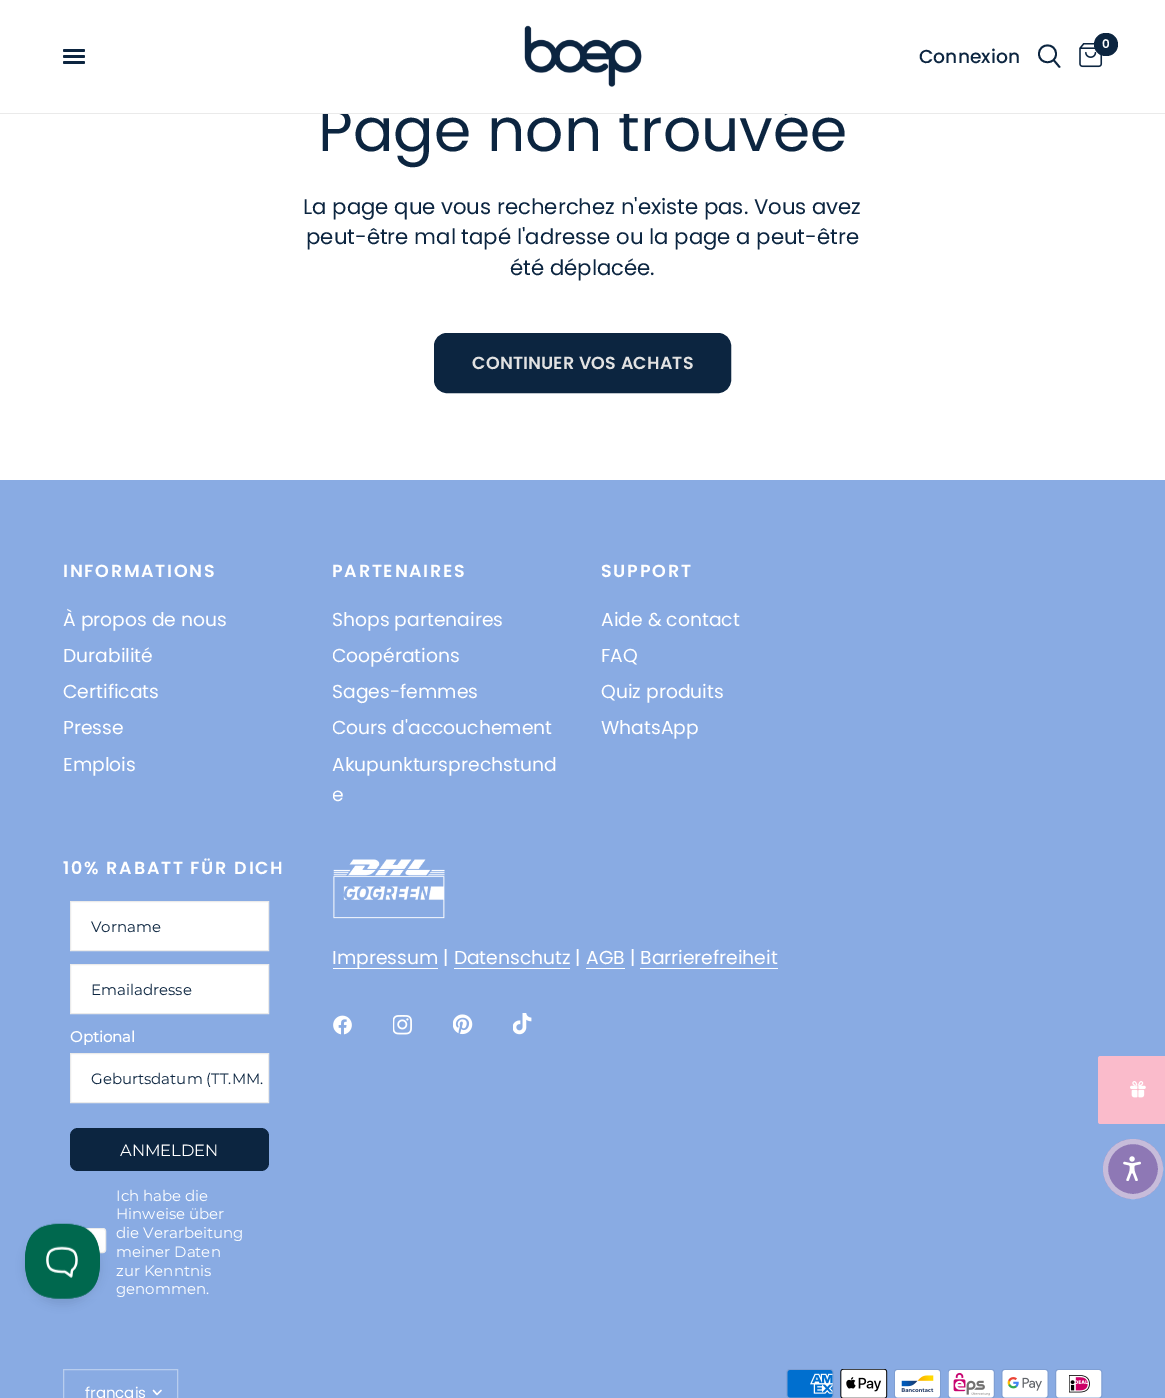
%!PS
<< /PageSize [1165 1398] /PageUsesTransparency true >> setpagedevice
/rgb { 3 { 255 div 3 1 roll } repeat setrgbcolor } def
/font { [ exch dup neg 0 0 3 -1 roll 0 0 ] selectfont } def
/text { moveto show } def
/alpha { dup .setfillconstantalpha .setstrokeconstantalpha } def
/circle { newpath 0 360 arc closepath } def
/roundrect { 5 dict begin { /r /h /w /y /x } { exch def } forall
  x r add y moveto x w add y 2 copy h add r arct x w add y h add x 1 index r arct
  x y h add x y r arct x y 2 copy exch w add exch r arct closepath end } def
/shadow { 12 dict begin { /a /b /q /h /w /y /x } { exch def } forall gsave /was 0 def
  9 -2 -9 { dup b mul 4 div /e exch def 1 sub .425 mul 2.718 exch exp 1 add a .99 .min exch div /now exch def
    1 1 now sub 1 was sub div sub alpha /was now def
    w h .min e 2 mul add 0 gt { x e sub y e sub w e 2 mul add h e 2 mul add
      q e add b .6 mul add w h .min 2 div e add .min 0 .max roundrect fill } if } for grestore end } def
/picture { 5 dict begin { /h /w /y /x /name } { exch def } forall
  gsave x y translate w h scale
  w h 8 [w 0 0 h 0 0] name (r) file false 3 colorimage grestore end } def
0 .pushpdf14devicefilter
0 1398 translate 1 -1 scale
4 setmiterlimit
255 255 255 rgb
0 0 1165 1398 rectfill
12 37 64 rgb
63 49 22 3 1.5 roundrect fill
63 55 22 3 1.5 roundrect fill
63 61 22 3 1.5 roundrect fill
(img_01.rgb) 524 25 118 62 picture
(img_02.rgb) 1079 43 24 25 picture
1094 33 24 23 11.5 roundrect fill
1.8 setlinewidth
1 setlinecap
1 setlinejoin
1054 60.5 moveto 5.5 6.5 rlineto 1056 54 moveto 0 11 -17 11 -17 0 rcurveto 0 -11.5 17 -11.5 17 0 rcurveto closepath stroke
434.5 333.5 296 59 12.5 roundrect gsave fill grestore
1 setlinewidth
0 setlinecap
0 setlinejoin
stroke
137 171 227 rgb
0 480 1165 918 rectfill
255 255 255 rgb
70.5 901.5 moveto 198 0 rlineto 0 49 rlineto -198 0 rlineto closepath gsave fill grestore
235 235 235 rgb
stroke
255 255 255 rgb
70.5 964.5 moveto 198 0 rlineto 0 49 rlineto -198 0 rlineto closepath gsave fill grestore
235 235 235 rgb
stroke
255 255 255 rgb
70.5 1053.5 moveto 198 0 rlineto 0 49 rlineto -198 0 rlineto closepath gsave fill grestore
235 235 235 rgb
stroke
12 37 64 rgb
70 1128 199 43 8 roundrect fill
255 255 255 rgb
81.5 1228.5 24 24 2.5 roundrect gsave fill grestore
235 235 235 rgb
stroke
(img_03.rgb) 333 859 112 60 picture
255 255 255 rgb
333 968 105 1 rectfill
454 968 116 1 rectfill
586 968 39 1 rectfill
640 968 138 1 rectfill
(img_04.rgb) 333 1015 19 20 picture
(img_05.rgb) 393 1015 19 20 picture
(img_06.rgb) 453 1014 20 21 picture
(img_07.rgb) 513 1013 19 22 picture
184 205 238 rgb
63.5 1369.5 114 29 rectstroke
255 255 255 rgb
1.4 setlinewidth
1 setlinecap
1 setlinejoin
161 1390.5 moveto -4 4 rlineto -3.5 -4 rlineto stroke
(img_08.rgb) 786 1369 48 29 picture
(img_09.rgb) 840 1369 48 29 picture
(img_10.rgb) 894 1369 47 29 picture
(img_11.rgb) 948 1369 47 29 picture
(img_12.rgb) 1001 1369 48 29 picture
(img_13.rgb) 1055 1369 48 29 picture
250 187 203 rgb
1098 1056 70 68 2.5 roundrect fill
(img_14.rgb) 1130 1081 16 17 picture
142 120 181 rgb
1133 1169 30 circle fill
0.5 alpha
255 255 255 rgb
5 setlinewidth
0 setlinecap
0 setlinejoin
1133 1169 27.5 circle stroke
1 alpha
(img_15.rgb) 1123 1156 18 25 picture
0 0 0 rgb
25 1229 75 75 37.5 4.5 0.1 shadow
(img_16.rgb) 25 1223 75 76 picture
/Poppins-SemiBold 12 font
255 255 255 rgb
(0) 1102 48 text
/Poppins-Medium 18.75 font
12 37 64 rgb
(Connexion) 919 63 text
/Poppins-Regular 60 font
(Page non trouvée) 318 151 text
234 234 234 rgb
0 113 1165 1 rectfill
255 255 255 rgb
322 104 476 9 rectfill
/Poppins-Regular 21.25 font
12 37 64 rgb
(La page que vous recherchez n'existe pas. Vous avez) 303 214 text
(peut-être mal tapé l'adresse ou la page a peut-être) 306 244 text
(été déplacée.) 510 275 text
/Poppins-SemiBold 17.5 font
226 226 226 rgb
472 369 moveto 0.2 0 (CONTINUER VOS ACHATS) ashow
255 255 255 rgb
63 577 moveto 1.75 0 (INFORMATIONS) ashow
/Poppins-Regular 18.75 font
(À propos de nous) 63 626 text
(Durabilité) 63 662 text
(Certificats) 63 698 text
(Presse) 63 734 text
(Emplois) 63 771 text
/Poppins-SemiBold 17.5 font
332 577 moveto 1.75 0 (PARTENAIRES) ashow
/Poppins-Regular 18.75 font
(Shops partenaires) 332 626 text
gsave
333 604 231 205 rectclip
(Coopérations) 332 662 text
grestore
(Sages-femmes) 332 698 text
gsave
333 604 231 205 rectclip
(Cours d'accouchement) 332 734 text
grestore
(Akupunktursprechstund) 332 771 text
gsave
333 604 231 205 rectclip
(e) 332 801 text
grestore
/Poppins-SemiBold 17.5 font
601 577 moveto 1.75 0 (SUPPORT) ashow
/Poppins-Regular 18.75 font
(Aide & contact) 601 626 text
(FAQ) 601 662 text
(Quiz produits) 601 698 text
(WhatsApp) 601 734 text
/Poppins-SemiBold 17.5 font
63 874 moveto 1.75 0 (10% RABATT FÜR DICH) ashow
/Montserrat-Thin 15 font
12 37 64 rgb
(Vorname) 91 932 text
(Emailadresse) 91 995 text
/Montserrat-Bold 15 font
255 255 255 rgb
(Optional) 70 1042 text
/Montserrat-Thin 15 font
12 37 64 rgb
(Geburtsdatum \(TT.MM.) 91 1084 text
/Montserrat-Thin 16.25 font
255 255 255 rgb
(ANMELDEN) 120 1156 text
/Montserrat-Thin 15 font
(Ich habe die) 116 1201 text
(Hinweise über) 116 1219 text
(die Verarbeitung) 116 1238 text
(meiner Daten) 116 1257 text
(zur Kenntnis) 116 1276 text
(genommen.) 116 1294 text
/Poppins-Regular 18.75 font
(Impressum | Datenschutz | AGB | Barrierefreiheit) 332 964 text
/Poppins-Regular 15 font
(français) 85 1398 text
.poppdf14devicefilter showpage
